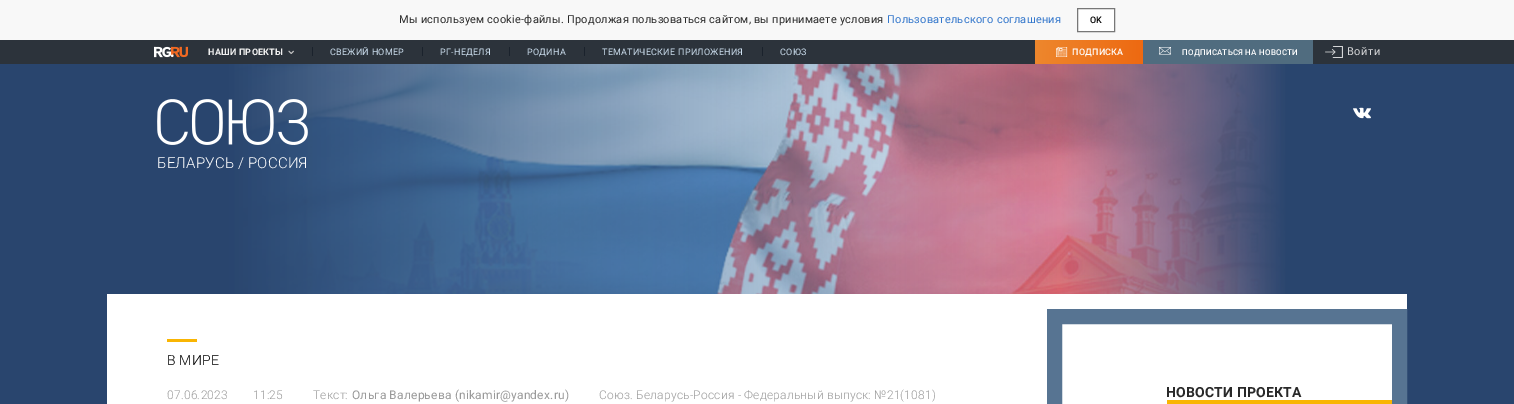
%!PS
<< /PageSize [1514 404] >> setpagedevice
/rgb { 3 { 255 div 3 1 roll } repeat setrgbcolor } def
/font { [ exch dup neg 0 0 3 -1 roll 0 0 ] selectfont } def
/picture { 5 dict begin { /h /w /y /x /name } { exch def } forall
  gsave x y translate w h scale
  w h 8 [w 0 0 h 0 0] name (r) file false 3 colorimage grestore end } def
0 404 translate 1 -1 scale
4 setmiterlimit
255 255 255 rgb
0 0 1514 404 rectfill
248 248 248 rgb
0 0 1514 40 rectfill
255 255 255 rgb
1077.5 8.5 moveto 37 0 rlineto 0 23 rlineto -37 0 rlineto closepath gsave fill grestore
119 119 119 rgb
stroke
44 51 59 rgb
0 40 1514 24 rectfill
(img_01.rgb) 154 46 34 12 picture
(img_02.rgb) 288 50 6 4 picture
26 34 44 rgb
312 47 1 9 rectfill
422 47 1 9 rectfill
509 47 1 9 rectfill
584 47 1 9 rectfill
762 47 1 9 rectfill
gsave 1035 40 moveto 108 0 rlineto 0 24 rlineto -108 0 rlineto closepath clip newpath
<< /ShadingType 2 /ColorSpace /DeviceRGB /Coords [1143 55 1035 49] /Extend [true true] /Function << /FunctionType 2 /Domain [0 1] /C0 [0.933 0.412 0.067] /C1 [0.929 0.529 0.176] /N 1 >> >> shfill grestore
(img_03.rgb) 1056 47 12 10 picture
80 108 127 rgb
1143 40 170 24 rectfill
(img_04.rgb) 1159 47 12 8 picture
(img_05.rgb) 1325 46 18 12 picture
(img_06.rgb) 0 64 1514 340 picture
(img_07.rgb) 1353 107 18 12 picture
(img_08.rgb) 157 99 151 46 picture
255 255 255 rgb
107 294 1300 110 rectfill
249 181 3 rgb
167 339 30 3 rectfill
87 116 146 rgb
15 setlinewidth
1054.5 316.5 345 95 rectstroke
249 181 3 rgb
1167 400 225 4 rectfill
/Roboto-Regular 11 font
41 41 41 rgb
399 23 moveto 0.22 0 (Мы используем cookie-файлы. Продолжая пользоваться сайтом, вы принимаете условия) ashow
51 119 204 rgb
887 23 moveto 0.22 0 (Пользовательского соглашения) ashow
/Roboto-Medium 9 font
0 0 0 rgb
1090 23 moveto 0.25 0 (OK) ashow
/Roboto-Bold 9 font
238 238 238 rgb
208 55 moveto 0.25 0 (НАШИ ПРОЕКТЫ) ashow
/Roboto-Regular 9 font
204 222 238 rgb
330 55 moveto 0.25 0 (СВЕЖИЙ НОМЕР) ashow
440 55 moveto 0.25 0 (РГ-НЕДЕЛЯ) ashow
527 55 moveto 0.25 0 (РОДИНА) ashow
602 55 moveto 0.25 0 (ТЕМАТИЧЕСКИЕ ПРИЛОЖЕНИЯ) ashow
780 55 moveto 0.25 0 (СОЮЗ) ashow
/Roboto-Medium 9 font
255 255 255 rgb
1072 55 moveto 0.25 0 (ПОДПИСКА) ashow
/Roboto-Medium 8 font
1182 55 moveto 0.2 0 (ПОДПИСАТЬСЯ НА НОВОСТИ) ashow
/Roboto-Regular 11 font
213 214 216 rgb
1347 55 moveto 0.5 0 (Войти) ashow
/Roboto-Light 15 font
255 255 255 rgb
157 168 moveto 0.2 0 (БЕЛАРУСЬ / РОССИЯ) ashow
/Roboto-Light 14 font
0 0 0 rgb
167 365 moveto 0.2 0 (В МИРЕ) ashow
/Roboto-Light 12 font
154 154 154 rgb
167 399 moveto 0.2 0 (07.06.2023) ashow
253 399 moveto 0.2 0 (11:25) ashow
313 399 moveto 0.2 0 (Текст:) ashow
/Roboto-Regular 12 font
352 399 moveto 0.2 0 (Ольга Валерьева \(nikamir@yandex.ru\)) ashow
/Roboto-Light 12 font
599 399 moveto 0.2 0 (Союз. Беларусь-Россия - Федеральный выпуск: №21\(1081\)) ashow
/Roboto-Bold 14 font
41 41 41 rgb
1166 397 moveto 0.2 0 (НОВОСТИ ПРОЕКТА) ashow
showpage
